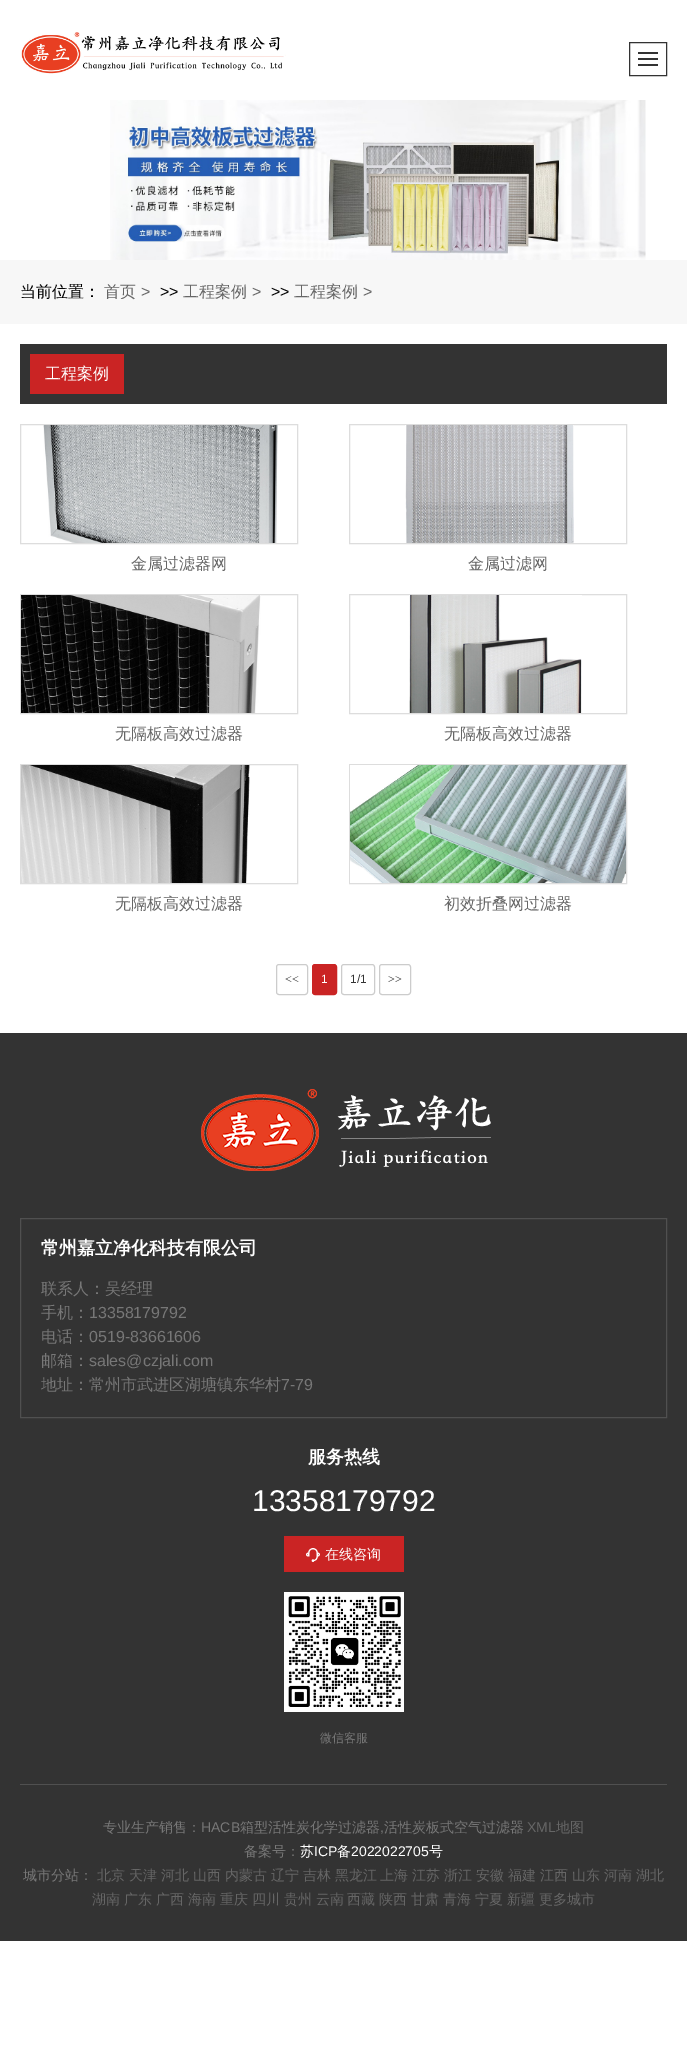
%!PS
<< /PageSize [687 2045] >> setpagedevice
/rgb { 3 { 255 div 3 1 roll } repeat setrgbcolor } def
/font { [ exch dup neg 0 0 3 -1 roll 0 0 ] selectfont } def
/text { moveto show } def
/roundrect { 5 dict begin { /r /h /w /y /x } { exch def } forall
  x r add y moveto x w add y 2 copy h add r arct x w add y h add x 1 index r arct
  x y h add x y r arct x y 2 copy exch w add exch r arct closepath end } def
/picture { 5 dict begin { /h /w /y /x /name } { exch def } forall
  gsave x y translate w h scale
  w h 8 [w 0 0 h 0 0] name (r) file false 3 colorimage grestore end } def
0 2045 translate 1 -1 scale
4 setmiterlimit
255 255 255 rgb
0 0 687 2045 rectfill
(img_01.rgb) 21 32 265 42 picture
51 51 51 rgb
629.5 42.5 37 33 rectstroke
638 52 20 2 rectfill
638 58 20 2 rectfill
638 64 20 2 rectfill
(img_02.rgb) 110 100 536 160 picture
247 247 247 rgb
0 260 687 64 rectfill
51 51 51 rgb
20 344 647 60 rectfill
202 36 36 rgb
30 354 94 40 rectfill
221 221 221 rgb
20.5 424.5 277 119 rectstroke
(img_03.rgb) 43 425 235 118 picture
349.5 424.5 277 119 rectstroke
(img_04.rgb) 405 425 169 118 picture
20.5 594.5 277 119 rectstroke
(img_05.rgb) 21 595 240 118 picture
349.5 594.5 277 119 rectstroke
(img_06.rgb) 409 595 173 118 picture
20.5 764.5 277 119 rectstroke
(img_07.rgb) 21 765 229 118 picture
349.5 764.5 277 119 rectstroke
(img_08.rgb) 350 765 276 118 picture
204 204 204 rgb
276.5 964.5 31 30 2.5 roundrect stroke
202 36 36 rgb
312.5 964.5 24 30 2.5 roundrect gsave fill grestore
stroke
204 204 204 rgb
341.5 964.5 33 30 2.5 roundrect stroke
379.5 964.5 31 30 2.5 roundrect stroke
51 51 51 rgb
0 1033 687 908 rectfill
(img_09.rgb) 201 1089 290 82 picture
80 80 80 rgb
20.5 1218.5 646 199 rectstroke
202 36 36 rgb
284 1536 120 36 rectfill
(img_10.rgb) 306 1548 14 14 picture
(img_11.rgb) 284 1592 120 120 picture
80 80 80 rgb
20 1784 647 1 rectfill
/WenQuanYiZenHei-Medium 16 font
0 0 0 rgb
(当前位置：) 20 297 text
102 102 102 rgb
(首页) 104 297 text
/LiberationSans-Regular 16 font
(>) 141 297 text
0 0 0 rgb
(>>) 160 297 text
/WenQuanYiZenHei-Medium 16 font
102 102 102 rgb
(工程案例) 183 297 text
/LiberationSans-Regular 16 font
(>) 252 297 text
0 0 0 rgb
(>>) 271 297 text
/WenQuanYiZenHei-Medium 16 font
102 102 102 rgb
(工程案例) 294 297 text
/LiberationSans-Regular 16 font
(>) 363 297 text
/WenQuanYiZenHei-Medium 16 font
255 255 255 rgb
(工程案例) 45 379 text
102 102 102 rgb
(金属过滤器网) 131 569 text
(金属过滤网) 468 569 text
(无隔板高效过滤器) 115 739 text
(无隔板高效过滤器) 444 739 text
(无隔板高效过滤器) 115 909 text
(初效折叠网过滤器) 444 909 text
/LiberationSerif-Regular 12 font
51 51 51 rgb
(<<) 285 983 text
/LiberationSans-Regular 12 font
255 255 255 rgb
(1) 321 983 text
51 51 51 rgb
(1/1) 350 983 text
/LiberationSerif-Regular 12 font
(>>) 388 983 text
/WenQuanYiZenHei-Bold 18 font
255 255 255 rgb
(常州嘉立净化科技有限公司) 41 1254 text
/WenQuanYiZenHei-Medium 16 font
119 119 119 rgb
(联系人：吴经理) 41 1294 text
(手机：) 41 1318 text
/LiberationSans-Regular 16 font
(13358179792) 89 1318 text
/WenQuanYiZenHei-Medium 16 font
(电话：) 41 1342 text
/LiberationSans-Regular 16 font
(0519-83661606) 89 1342 text
/WenQuanYiZenHei-Medium 16 font
(邮箱：) 41 1366 text
/LiberationSans-Regular 16 font
(sales@czjali.com) 89 1366 text
/WenQuanYiZenHei-Medium 16 font
(地址：常州市武进区湖塘镇东华村) 41 1390 text
/LiberationSans-Regular 16 font
(7-79) 281 1390 text
/WenQuanYiZenHei-Bold 18 font
255 255 255 rgb
(服务热线) 308 1463 text
/LiberationSans-Regular 30 font
(13358179792) 252 1511 text
/WenQuanYiZenHei-Medium 14 font
(在线咨询) 325 1559 text
/WenQuanYiZenHei-Medium 12 font
119 119 119 rgb
(微信客服) 320 1742 text
/WenQuanYiZenHei-Medium 14 font
(专业生产销售：) 103 1832 text
/LiberationSans-Regular 14 font
(HACB) 201 1832 text
/WenQuanYiZenHei-Medium 14 font
(箱型活性炭化学过滤器) 240 1832 text
/LiberationSans-Regular 14 font
(,) 380 1832 text
/WenQuanYiZenHei-Medium 14 font
(活性炭板式空气过滤器) 384 1832 text
/LiberationSans-Regular 14 font
102 102 102 rgb
(XML) 527 1832 text
/WenQuanYiZenHei-Medium 14 font
(地图) 556 1832 text
119 119 119 rgb
(备案号：) 244 1856 text
255 255 255 rgb
(苏) 300 1856 text
/LiberationSans-Regular 14 font
(ICP) 314 1856 text
/WenQuanYiZenHei-Medium 14 font
(备) 337 1856 text
/LiberationSans-Regular 14 font
(2022022705) 351 1856 text
/WenQuanYiZenHei-Medium 14 font
(号) 429 1856 text
119 119 119 rgb
(城市分站：) 23 1880 text
102 102 102 rgb
(北京) 97 1880 text
(天津) 129 1880 text
(河北) 161 1880 text
(山西) 193 1880 text
(内蒙古) 225 1880 text
(辽宁) 271 1880 text
(吉林) 303 1880 text
(黑龙江) 335 1880 text
(上海) 380 1880 text
(江苏) 412 1880 text
(浙江) 444 1880 text
(安徽) 476 1880 text
(福建) 508 1880 text
(江西) 540 1880 text
(山东) 572 1880 text
(河南) 604 1880 text
(湖北) 636 1880 text
(湖南) 92 1904 text
(广东) 124 1904 text
(广西) 156 1904 text
(海南) 188 1904 text
(重庆) 220 1904 text
(四川) 252 1904 text
(贵州) 284 1904 text
(云南) 316 1904 text
(西藏) 347 1904 text
(陕西) 379 1904 text
(甘肃) 411 1904 text
(青海) 443 1904 text
(宁夏) 475 1904 text
(新疆) 507 1904 text
(更多城市) 539 1904 text
showpage
